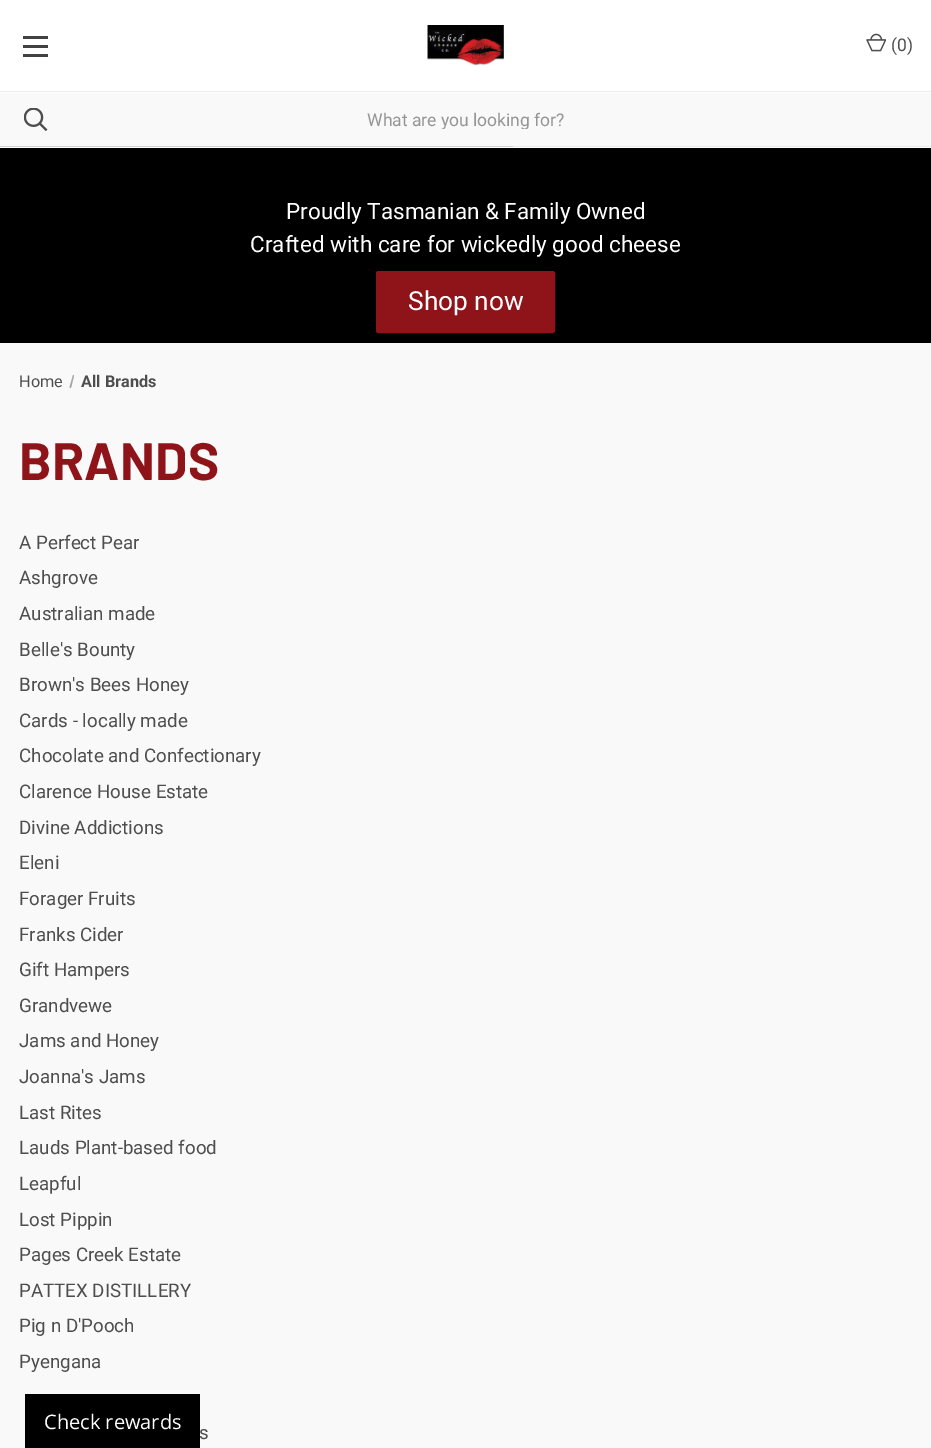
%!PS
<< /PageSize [931 1448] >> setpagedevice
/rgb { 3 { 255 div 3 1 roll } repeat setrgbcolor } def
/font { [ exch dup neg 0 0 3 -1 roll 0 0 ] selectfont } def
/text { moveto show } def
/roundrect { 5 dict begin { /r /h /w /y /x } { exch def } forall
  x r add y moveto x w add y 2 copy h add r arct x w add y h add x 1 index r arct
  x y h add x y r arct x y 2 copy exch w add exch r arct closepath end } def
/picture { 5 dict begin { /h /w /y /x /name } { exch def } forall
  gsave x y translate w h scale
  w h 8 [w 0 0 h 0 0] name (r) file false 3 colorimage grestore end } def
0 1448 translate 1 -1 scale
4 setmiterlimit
249 249 249 rgb
0 0 931 1448 rectfill
255 255 255 rgb
0 0 931 148 rectfill
235 235 235 rgb
513 146 418 1 rectfill
66 66 66 rgb
23 45 25 3 rectfill
23 36 25 3 rectfill
23 54 25 3 rectfill
(img_01.rgb) 427 25 77 41 picture
(img_02.rgb) 866 33 20 19 picture
249 249 249 rgb
0 93 931 53 rectfill
(img_03.rgb) 24 108 24 23 picture
235 235 235 rgb
0 91 931 1 rectfill
210 210 210 rgb
0 146 513 1 rectfill
0 0 0 rgb
0 148 931 195 rectfill
142 20 25 rgb
376.5 271.5 178 61 2 roundrect gsave fill grestore
stroke
163 163 163 rgb
73 375 moveto 1 0.5 rlineto -3 12.5 rlineto -1.5 -0.5 rlineto closepath fill
/Roboto-Regular 17.5 font
78 78 78 rgb
(\(0\)) 891 51 text
gsave
38 109 856 20 rectclip
150 150 150 rgb
(What are you looking for?) 367 126 text
grestore
/Roboto-Regular 22.5 font
255 255 255 rgb
(Proudly Tasmanian & Family Owned) 286 219 text
(Crafted with care for wickedly good cheese) 250 252 text
/Roboto-Regular 26.25 font
(Shop now) 408 310 text
/Roboto-Regular 16.25 font
78 78 78 rgb
(Home) 19 387 text
/Roboto-Bold 16.25 font
(All Brands) 81 387 text
/Barlow-Bold 52.5 font
142 20 25 rgb
19 480 moveto 0.25 0 (BRANDS) ashow
/Roboto-Regular 18.75 font
78 78 78 rgb
(A Perfect Pear) 19 549 text
(Ashgrove) 19 584 text
(Australian made) 19 620 text
(Belle's Bounty) 19 656 text
(Brown's Bees Honey) 19 691 text
(Cards - locally made) 19 727 text
(Chocolate and Confectionary) 19 762 text
(Clarence House Estate) 19 798 text
(Divine Addictions) 19 834 text
(Eleni) 19 869 text
(Forager Fruits) 19 905 text
(Franks Cider) 19 941 text
(Gift Hampers) 19 976 text
(Grandvewe) 19 1012 text
(Jams and Honey) 19 1047 text
(Joanna's Jams) 19 1083 text
(Last Rites) 19 1119 text
(Lauds Plant-based food) 19 1154 text
(Leapful) 19 1190 text
(Lost Pippin) 19 1226 text
(Pages Creek Estate) 19 1261 text
(PATTEX DISTILLERY) 19 1297 text
(Pig n D'Pooch) 19 1332 text
(Pyengana) 19 1368 text
(s) 199 1439 text
0 0 0 rgb
25 1394 175 54 rectfill
/OpenSans-Regular 20 font
255 255 255 rgb
(Check rewards) 44 1429 text
showpage
